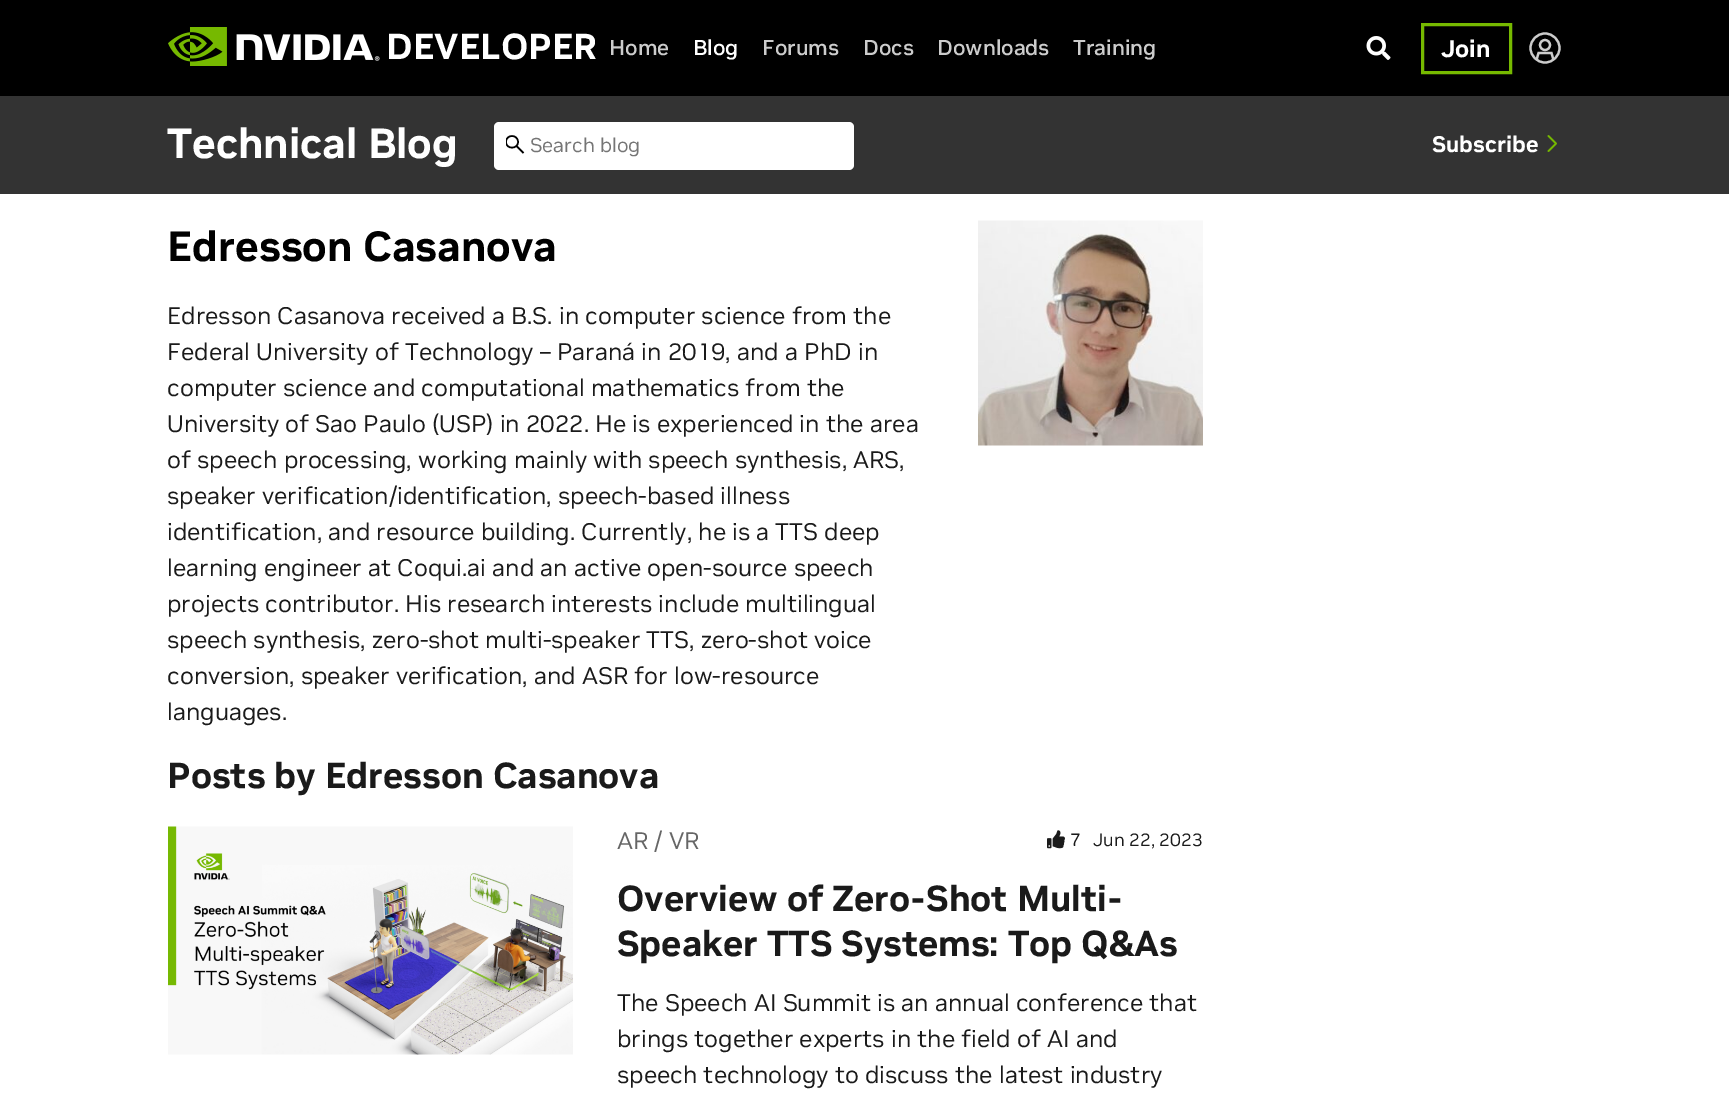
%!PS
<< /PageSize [1729 1104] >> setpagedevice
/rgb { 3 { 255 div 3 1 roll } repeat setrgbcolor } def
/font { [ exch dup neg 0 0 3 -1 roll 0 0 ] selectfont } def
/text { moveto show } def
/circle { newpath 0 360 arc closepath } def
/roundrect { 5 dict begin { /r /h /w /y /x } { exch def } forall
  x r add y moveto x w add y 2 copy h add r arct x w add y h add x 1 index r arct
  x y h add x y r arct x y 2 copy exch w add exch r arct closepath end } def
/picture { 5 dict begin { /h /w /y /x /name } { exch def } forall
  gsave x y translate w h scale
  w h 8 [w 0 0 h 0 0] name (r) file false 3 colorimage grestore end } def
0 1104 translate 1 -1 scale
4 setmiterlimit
255 255 255 rgb
0 0 1729 1104 rectfill
0 0 0 rgb
0 0 1729 96 rectfill
(img_01.rgb) 168 27 212 39 picture
(img_02.rgb) 1366 36 25 24 picture
118 185 0 rgb
3 setlinewidth
1422.5 24.5 88 48 rectstroke
204 204 204 rgb
2.2 setlinewidth
1545 48 14.5 circle stroke
1553.5 60 moveto -2 -7 rlineto -13 0 rlineto -2 7 rlineto stroke
1545 45 5 circle stroke
51 51 51 rgb
0 96 1729 98 rectfill
255 255 255 rgb
494 122 360 48 5 roundrect fill
gsave
506 135 19 20 rectclip
0 0 0 rgb
1.5 setlinewidth
523.5 153 moveto -7 -7 rlineto 518 142 moveto 0 7.5 -12 7.5 -12 0 rcurveto 0 -8 12 -8 12 0 rcurveto closepath stroke
grestore
(img_03.rgb) 1547 135 10 17 picture
(img_04.rgb) 978 220 225 226 picture
(img_05.rgb) 168 826 405 229 picture
(img_06.rgb) 1047 830 18 19 picture
/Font-Bold 36 font
(DEVELOPER) 386 59 text
/Font-Medium 21.5 font
204 204 204 rgb
(Home) 609 55 text
255 255 255 rgb
(Blog) 693 55 text
204 204 204 rgb
(Forums) 762 55 text
(Docs) 863 55 text
(Downloads) 937 55 text
(Training) 1073 55 text
/Font-Bold 24 font
255 255 255 rgb
(Join) 1441 57 text
/Font-Bold 42 font
(Technical Blog) 167 158 text
/Font-Regular 20 font
117 117 117 rgb
(Search blog) 530 152 text
/Font-Bold 22.5 font
255 255 255 rgb
(Subscribe) 1432 152 text
/Font-Bold 42 font
0 0 0 rgb
(Edresson Casanova) 167 261 text
/Font-Regular 24 font
26 26 26 rgb
(Edresson Casanova received a B.S. in computer science from the) 167 324 text
(Federal University of Technology – Paraná in 2019, and a PhD in) 167 360 text
(computer science and computational mathematics from the) 167 396 text
(University of Sao Paulo \(USP\) in 2022. He is experienced in the area) 167 432 text
(of speech processing, working mainly with speech synthesis, ARS,) 167 468 text
(speaker verification/identification, speech-based illness) 167 504 text
(identification, and resource building. Currently, he is a TTS deep) 167 540 text
(learning engineer at Coqui.ai and an active open-source speech) 167 576 text
(projects contributor. His research interests include multilingual) 167 612 text
(speech synthesis, zero-shot multi-speaker TTS, zero-shot voice) 167 648 text
(conversion, speaker verification, and ASR for low-resource) 167 684 text
(languages.) 167 720 text
/Font-Bold 36 font
(Posts by Edresson Casanova) 167 788 text
/Font-Regular 24 font
102 102 102 rgb
(AR / VR) 617 849 text
/Font-Regular 18 font
26 26 26 rgb
(7) 1070 846 text
(Jun 22, 2023) 1093 846 text
/Font-Bold 36 font
(Overview of Zero-Shot Multi-) 617 911 text
(Speaker TTS Systems: Top Q&As) 617 956 text
/Font-Regular 24 font
(The Speech AI Summit is an annual conference that) 617 1011 text
(brings together experts in the field of AI and) 617 1047 text
(speech technology to discuss the latest industry) 617 1083 text
showpage
